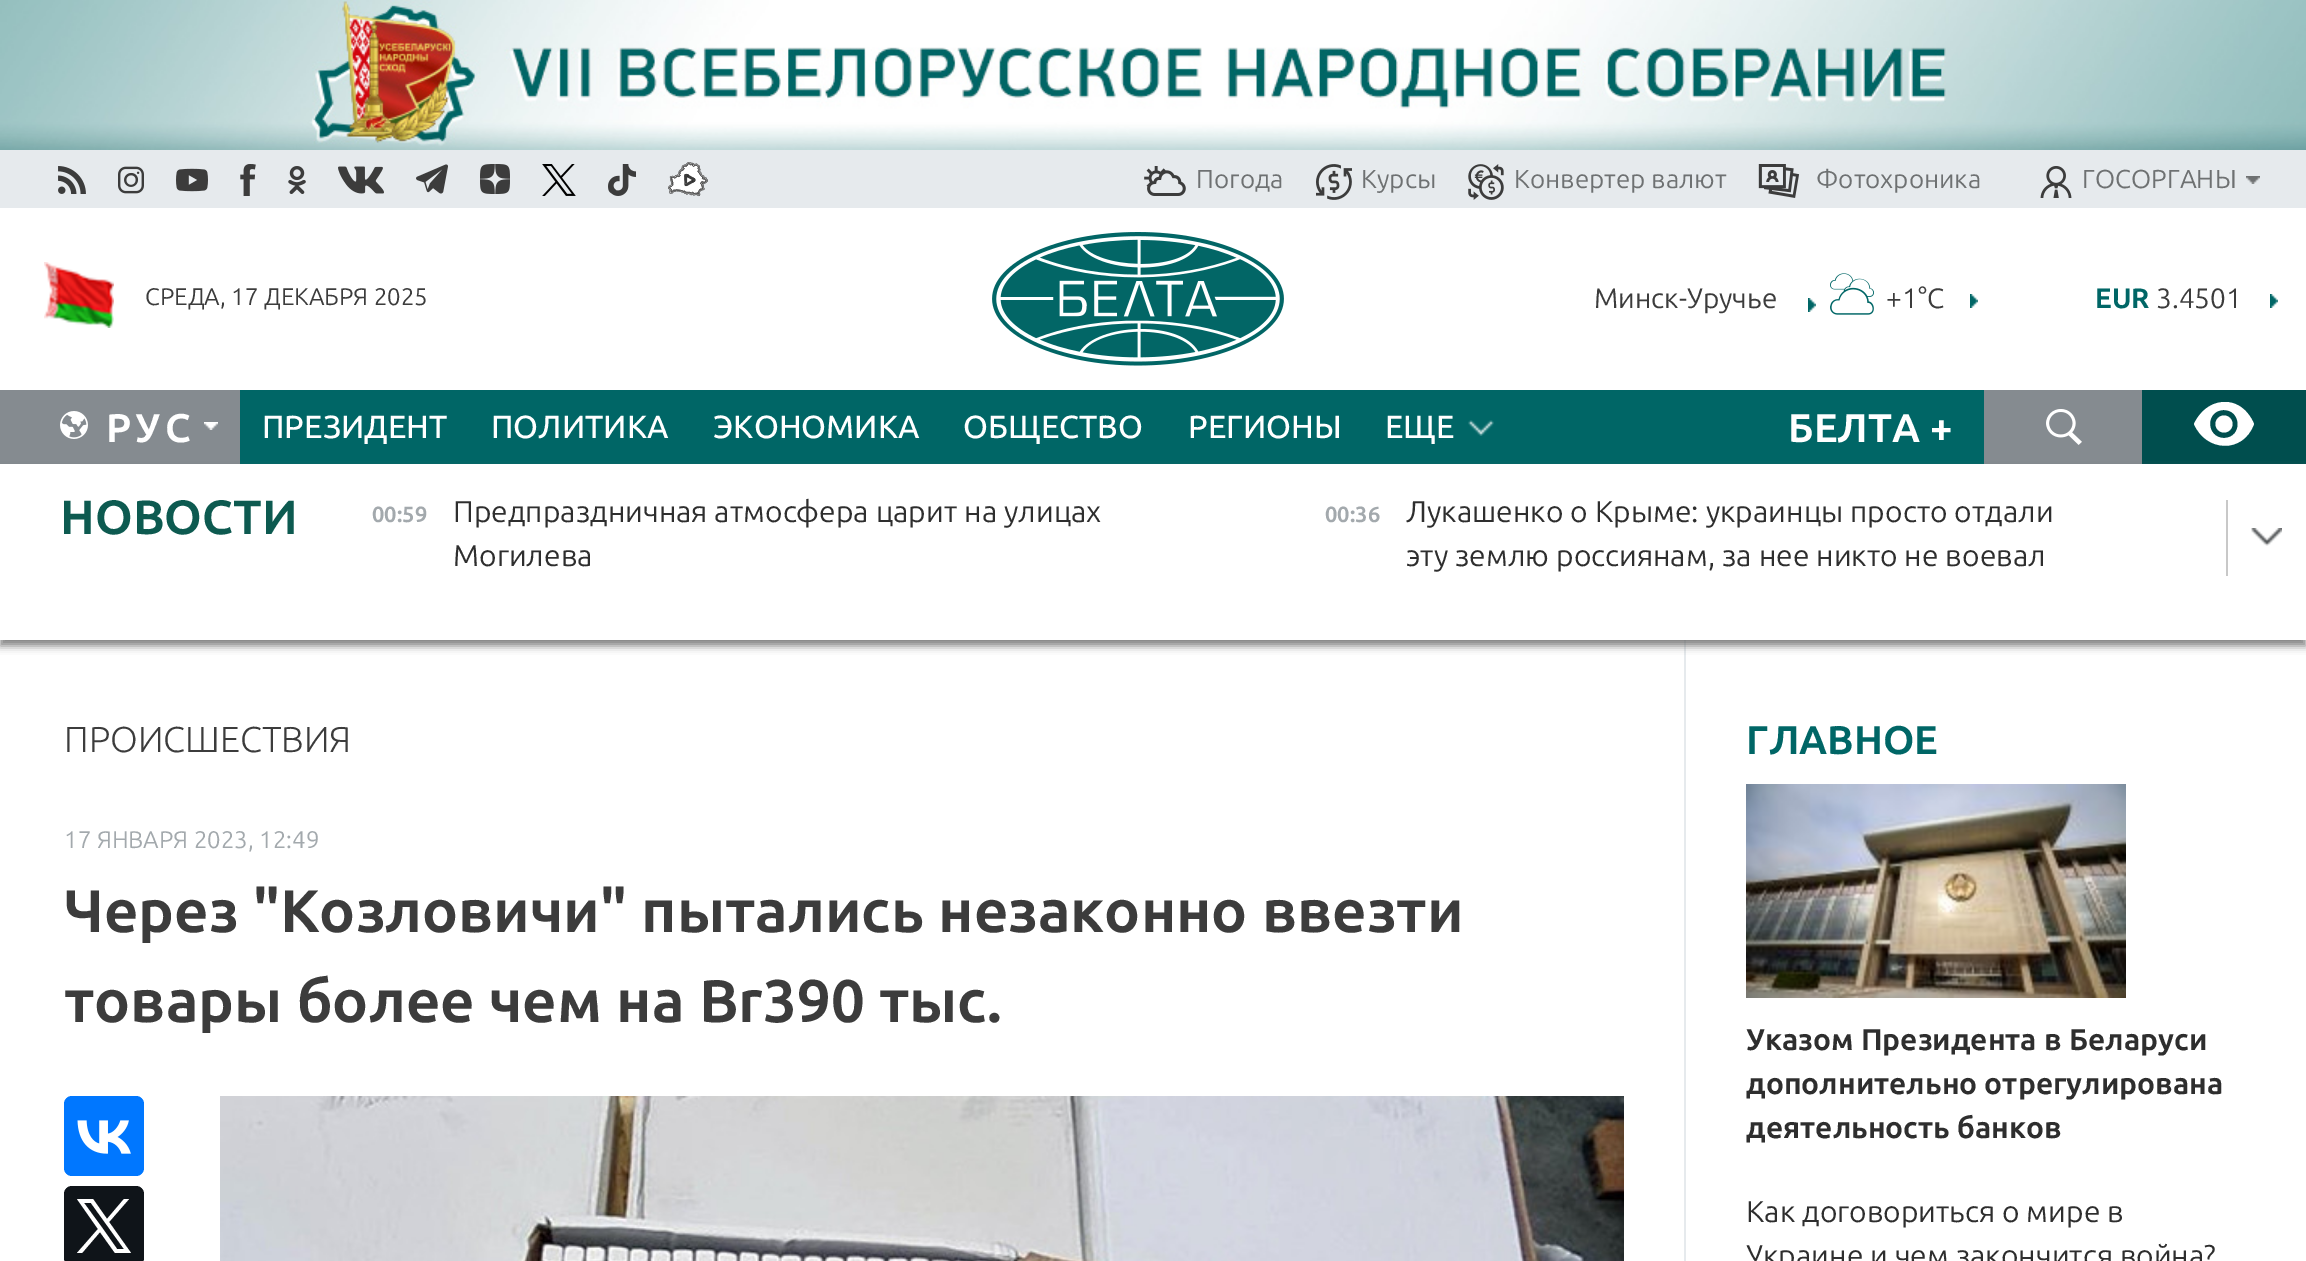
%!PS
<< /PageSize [2306 1261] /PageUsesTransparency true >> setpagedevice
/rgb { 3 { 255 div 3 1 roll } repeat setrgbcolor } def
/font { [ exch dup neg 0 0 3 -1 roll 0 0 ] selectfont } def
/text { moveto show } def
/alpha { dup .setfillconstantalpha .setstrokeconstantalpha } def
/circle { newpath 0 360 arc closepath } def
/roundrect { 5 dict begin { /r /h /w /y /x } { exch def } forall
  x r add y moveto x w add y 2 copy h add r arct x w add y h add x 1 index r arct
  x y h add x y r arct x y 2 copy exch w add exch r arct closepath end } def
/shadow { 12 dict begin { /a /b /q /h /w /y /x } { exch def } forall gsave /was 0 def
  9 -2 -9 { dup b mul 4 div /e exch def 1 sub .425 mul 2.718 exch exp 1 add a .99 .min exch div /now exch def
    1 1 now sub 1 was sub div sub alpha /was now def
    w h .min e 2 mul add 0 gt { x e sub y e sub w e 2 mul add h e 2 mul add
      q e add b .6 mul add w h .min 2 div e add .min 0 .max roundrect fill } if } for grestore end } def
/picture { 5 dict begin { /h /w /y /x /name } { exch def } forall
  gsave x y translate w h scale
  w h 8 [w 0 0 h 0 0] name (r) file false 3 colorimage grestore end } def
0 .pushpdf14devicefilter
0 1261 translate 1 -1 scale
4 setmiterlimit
255 255 255 rgb
0 0 2306 1261 rectfill
(img_01.rgb) 0 0 2306 150 picture
230 234 237 rgb
0 150 2306 58 rectfill
(img_02.rgb) 58 166 28 28 picture
(img_03.rgb) 118 166 26 28 picture
(img_04.rgb) 176 168 32 24 picture
(img_05.rgb) 240 164 16 32 picture
(img_06.rgb) 288 166 18 28 picture
(img_07.rgb) 338 166 46 28 picture
(img_08.rgb) 416 164 32 30 picture
(img_09.rgb) 480 164 30 30 picture
(img_10.rgb) 542 164 34 32 picture
(img_11.rgb) 608 164 28 32 picture
(img_12.rgb) 668 162 40 35 picture
(img_13.rgb) 1144 166 42 30 picture
(img_14.rgb) 1316 164 36 36 picture
(img_15.rgb) 1468 164 36 36 picture
(img_16.rgb) 1758 164 42 34 picture
(img_17.rgb) 2246 176 14 8 picture
(img_18.rgb) 2040 166 32 32 picture
(img_19.rgb) 44 262 70 66 picture
(img_20.rgb) 992 232 292 134 picture
(img_21.rgb) 1808 298 8 14 picture
(img_22.rgb) 1830 273 44 42 picture
(img_21.rgb) 1970 294 8 14 picture
(img_21.rgb) 2270 294 8 14 picture
0 102 102 rgb
240 390 1744 74 rectfill
133 139 144 rgb
0 390 240 74 rectfill
(img_23.rgb) 60 411 28 28 picture
(img_24.rgb) 204 422 14 8 picture
(img_25.rgb) 1468 420 26 16 picture
1984 390 158 74 rectfill
(img_26.rgb) 2046 409 36 36 picture
0 78 78 rgb
2142 390 164 74 rectfill
255 255 255 rgb
2225 402 moveto -22 0 -31 22 -31 22 rcurveto 12 28 49 30 60 0 rcurveto 0 0 -8 -22 -29 -22 rcurveto closepath 2224 438 moveto -18 0 -19 -27 -1 -28 rcurveto 19 -1 20 28 1 28 rcurveto closepath fill
2224 424 8.5 circle fill
230 234 237 rgb
1684 640 2 621 rectfill
gsave
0 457 moveto 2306 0 rlineto 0 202 rlineto -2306 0 rlineto closepath 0 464 moveto 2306 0 rlineto 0 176 rlineto -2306 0 rlineto closepath eoclip newpath
100 100 100 rgb
0 470 2306 176 0 4 0.8 shadow
grestore
(img_27.rgb) 2251 528 31 18 picture
200 200 200 rgb
2226 500 2 76 rectfill
0 119 255 rgb
64 1096 80 80 8 roundrect fill
(img_28.rgb) 77 1120 54 34 picture
15 20 25 rgb
64 1186 80 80 8 roundrect fill
255 255 255 rgb
109 1222 moveto 20 -23 rlineto -5 0 rlineto -17 20 rlineto -14 -20 rlineto -16 0 rlineto 21 30 rlineto -21 24 rlineto 5 0 rlineto 18 -21 rlineto 15 21 rlineto 16 0 rlineto closepath 103 1229 moveto -19 -26 rlineto 7 0 rlineto 33 46 rlineto -7 0 rlineto closepath fill
(img_29.rgb) 220 1096 1404 165 picture
(img_30.rgb) 1746 784 380 214 picture
/Ubuntu-Regular 26 font
110 113 114 rgb
(Погода) 1196 188 text
(Курсы) 1361 188 text
(Конвертер валют) 1514 188 text
(Фотохроника) 1816 188 text
(ГОСОРГАНЫ) 2082 188 text
/Ubuntu-Regular 24 font
60 60 60 rgb
(СРЕДА, 17 ДЕКАБРЯ 2025) 145 305 text
/Ubuntu-Regular 28 font
(Минск-Уручье) 1594 308 text
(+1°C) 1886 308 text
/Ubuntu-Bold 28 font
0 102 102 rgb
(EUR) 2095 308 text
/Ubuntu-Regular 28 font
60 60 60 rgb
(3.4501) 2156 308 text
/Ubuntu-Bold 40 font
255 255 255 rgb
106 442 moveto 4 0 (РУС) ashow
/Ubuntu-Medium 32 font
(ПРЕЗИДЕНТ) 262 438 text
(ПОЛИТИКА) 491 438 text
(ЭКОНОМИКА) 713 438 text
(ОБЩЕСТВО) 963 438 text
(РЕГИОНЫ) 1188 438 text
(ЕЩЕ) 1385 438 text
/Ubuntu-Bold 40 font
(БЕЛТА +) 1788 442 text
/Ubuntu-Bold 48 font
13 90 80 rgb
(НОВОСТИ) 60 534 text
/Ubuntu-Bold 22 font
163 169 173 rgb
(00:59) 372 522 text
/Ubuntu-Regular 30 font
46 46 46 rgb
(Предпраздничная атмосфера царит на улицах) 453 522 text
(Могилева) 453 566 text
/Ubuntu-Bold 22 font
163 169 173 rgb
(00:36) 1325 522 text
/Ubuntu-Regular 30 font
46 46 46 rgb
(Лукашенко о Крыме: украинцы просто отдали) 1406 522 text
(эту землю россиянам, за нее никто не воевал) 1406 566 text
/Ubuntu-Light 36 font
60 60 60 rgb
(ПРОИСШЕСТВИЯ) 64 752 text
/Ubuntu-Regular 24 font
163 169 173 rgb
(17 ЯНВАРЯ 2023, 12:49) 64 848 text
/Ubuntu-Bold 60 font
60 60 60 rgb
(Через "Козловичи" пытались незаконно ввезти) 64 932 text
(товары более чем на Br390 тыс.) 64 1022 text
/Ubuntu-Bold 40 font
0 102 102 rgb
(ГЛАВНОЕ) 1746 754 text
/Ubuntu-Bold 30 font
46 46 46 rgb
(Указом Президента в Беларуси) 1746 1050 text
(дополнительно отрегулирована) 1746 1094 text
(деятельность банков) 1746 1138 text
/Ubuntu-Regular 30 font
(Как договориться о мире в) 1746 1222 text
(Украине и чем закончится война?) 1746 1266 text
.poppdf14devicefilter showpage
